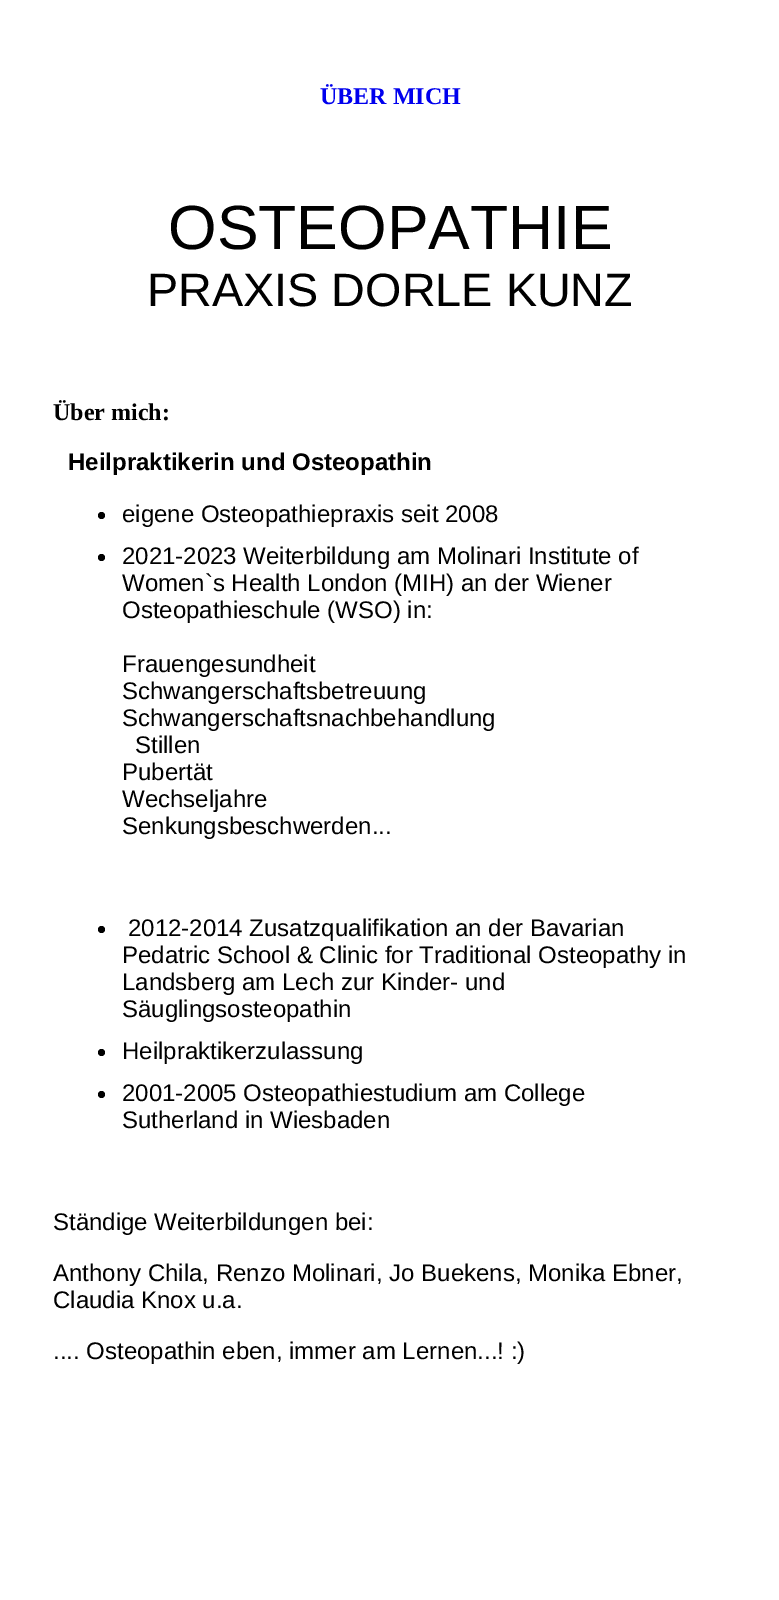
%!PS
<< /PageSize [779 1600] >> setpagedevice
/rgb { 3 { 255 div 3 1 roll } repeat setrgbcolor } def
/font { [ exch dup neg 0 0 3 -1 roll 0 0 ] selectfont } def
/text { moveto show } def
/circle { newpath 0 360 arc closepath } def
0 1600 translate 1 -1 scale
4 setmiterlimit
255 255 255 rgb
0 0 779 1600 rectfill
0 0 0 rgb
101.5 515.5 3.5 circle fill
101.5 557.5 3.5 circle fill
101.5 929.5 3.5 circle fill
101.5 1052.5 3.5 circle fill
101.5 1094.5 3.5 circle fill
/LiberationSerif-Bold 24 font
0 0 238 rgb
(ÜBER MICH) 320 104 text
/LiberationSans-Regular 62.5 font
0 0 0 rgb
(OSTEOPATHIE) 168 249 text
/LiberationSans-Regular 46.75 font
(PRAXIS DORLE KUNZ) 147 306 text
/LiberationSerif-Bold 24 font
(Über mich:) 53 420 text
/LiberationSans-Bold 24 font
(Heilpraktikerin und Osteopathin) 68 470 text
/LiberationSans-Regular 24 font
(eigene Osteopathiepraxis seit 2008) 122 522 text
(2021-2023 Weiterbildung am Molinari Institute of) 122 564 text
(Women`s Health London \(MIH\) an der Wiener) 122 591 text
(Osteopathieschule \(WSO\) in:) 122 618 text
(Frauengesundheit) 122 672 text
(Schwangerschaftsbetreuung) 122 699 text
(Schwangerschaftsnachbehandlung) 122 726 text
(Stillen) 135 753 text
(Pubertät) 122 780 text
(Wechseljahre) 122 807 text
(Senkungsbeschwerden...) 122 834 text
(2012-2014 Zusatzqualifikation an der Bavarian) 128 936 text
(Pedatric School & Clinic for Traditional Osteopathy in) 122 963 text
(Landsberg am Lech zur Kinder- und) 122 990 text
(Säuglingsosteopathin) 122 1017 text
(Heilpraktikerzulassung) 122 1059 text
(2001-2005 Osteopathiestudium am College) 122 1101 text
(Sutherland in Wiesbaden) 122 1128 text
(Ständige Weiterbildungen bei:) 53 1230 text
(Anthony Chila, Renzo Molinari, Jo Buekens, Monika Ebner,) 53 1281 text
(Claudia Knox u.a.) 53 1308 text
(.... Osteopathin eben, immer am Lernen...! :\)) 53 1359 text
showpage
